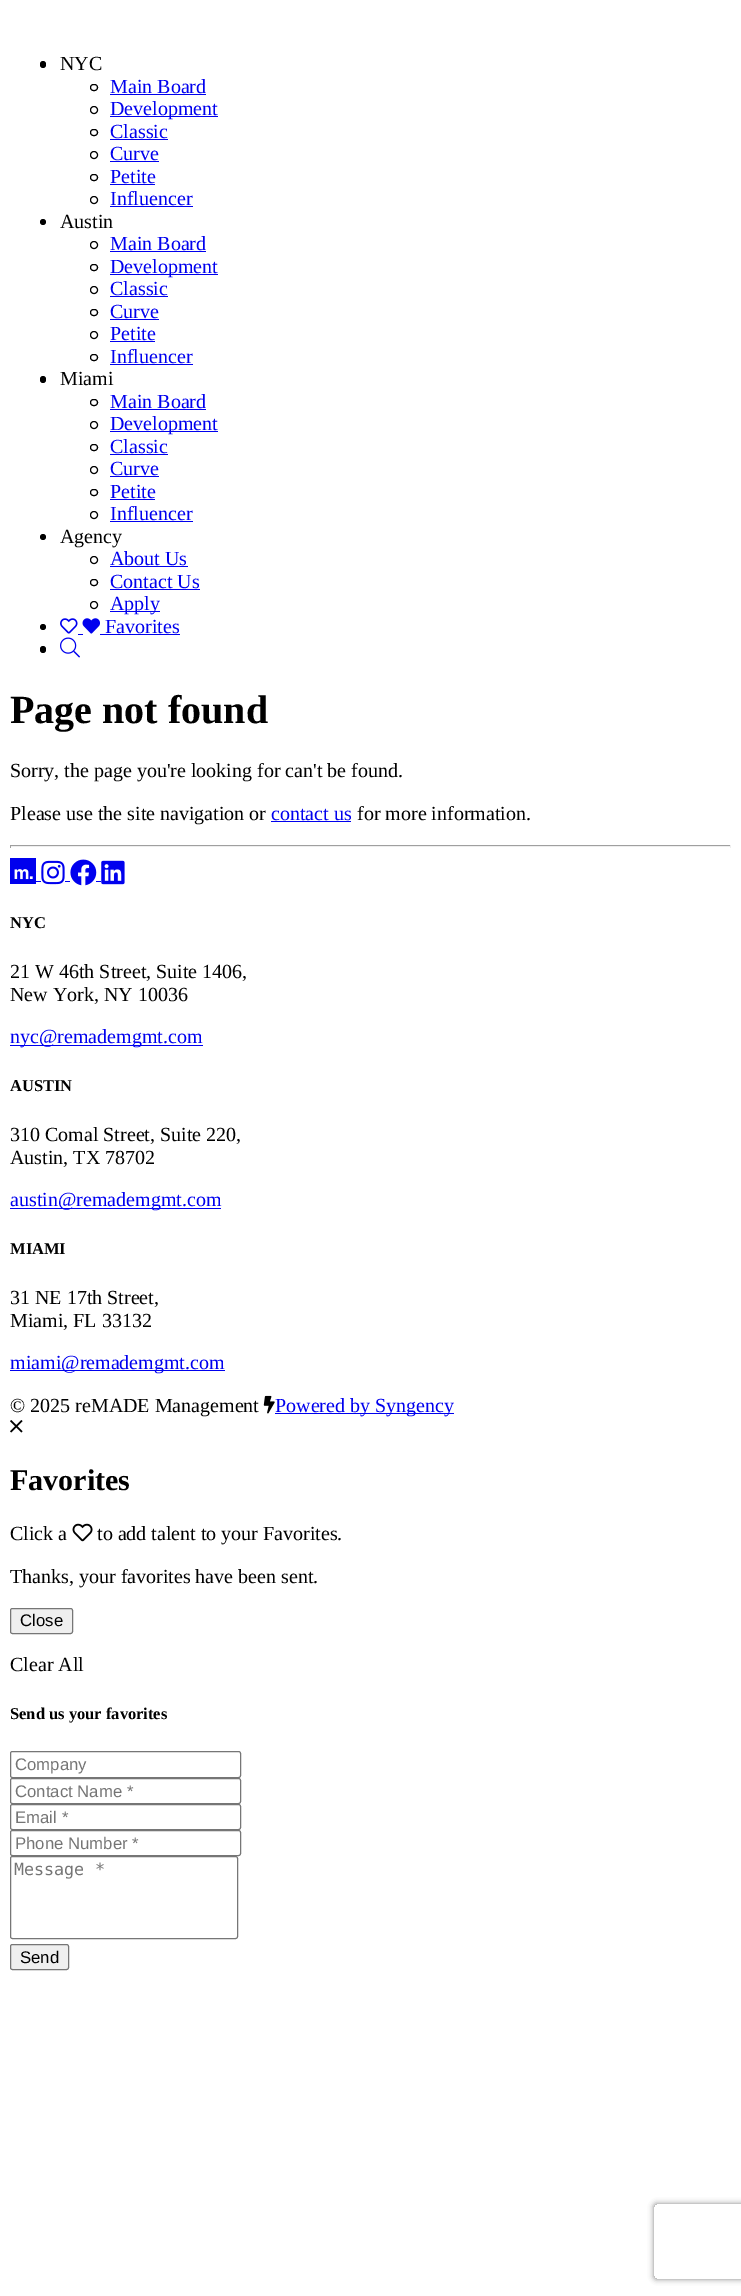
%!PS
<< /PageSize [741 2296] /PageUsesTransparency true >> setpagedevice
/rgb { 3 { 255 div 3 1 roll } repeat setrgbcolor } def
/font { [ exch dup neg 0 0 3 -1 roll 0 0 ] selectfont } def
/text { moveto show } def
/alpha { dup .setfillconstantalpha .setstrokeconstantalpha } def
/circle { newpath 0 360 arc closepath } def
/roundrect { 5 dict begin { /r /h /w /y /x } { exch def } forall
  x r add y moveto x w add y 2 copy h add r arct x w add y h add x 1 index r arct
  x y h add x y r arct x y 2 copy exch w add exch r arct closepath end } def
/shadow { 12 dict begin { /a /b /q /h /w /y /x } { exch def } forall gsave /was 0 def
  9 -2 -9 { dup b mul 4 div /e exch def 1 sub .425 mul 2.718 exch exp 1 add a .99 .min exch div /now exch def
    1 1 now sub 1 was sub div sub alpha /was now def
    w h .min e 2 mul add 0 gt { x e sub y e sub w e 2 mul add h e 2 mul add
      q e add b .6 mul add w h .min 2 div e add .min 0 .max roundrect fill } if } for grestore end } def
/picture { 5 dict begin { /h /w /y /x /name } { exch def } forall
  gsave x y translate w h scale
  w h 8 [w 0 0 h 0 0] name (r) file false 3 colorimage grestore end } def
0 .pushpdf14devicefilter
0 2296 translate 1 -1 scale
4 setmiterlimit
255 255 255 rgb
0 0 741 2296 rectfill
0 0 0 rgb
40 61 6 7 3 roundrect fill
90.5 84.5 7 6 3 roundrect stroke
0 0 238 rgb
110 94 96 1 rectfill
0 0 0 rgb
94 110 3.5 circle stroke
0 0 238 rgb
110 116 108 1 rectfill
0 0 0 rgb
90.5 129.5 7 6 3 roundrect stroke
0 0 238 rgb
110 139 58 1 rectfill
0 0 0 rgb
94 155 3.5 circle stroke
0 0 238 rgb
110 161 49 1 rectfill
0 0 0 rgb
90.5 174.5 7 6 3 roundrect stroke
0 0 238 rgb
110 184 45 1 rectfill
0 0 0 rgb
94 200 3.5 circle stroke
0 0 238 rgb
110 206 83 1 rectfill
0 0 0 rgb
43 222 3 circle fill
94 245 3.5 circle stroke
0 0 238 rgb
110 251 96 1 rectfill
0 0 0 rgb
90.5 264.5 7 6 3 roundrect stroke
0 0 238 rgb
110 274 108 1 rectfill
0 0 0 rgb
94 290 3.5 circle stroke
0 0 238 rgb
110 296 58 1 rectfill
0 0 0 rgb
90.5 309.5 7 6 3 roundrect stroke
0 0 238 rgb
110 319 49 1 rectfill
0 0 0 rgb
94 335 3.5 circle stroke
0 0 238 rgb
110 341 45 1 rectfill
0 0 0 rgb
90.5 354.5 7 6 3 roundrect stroke
0 0 238 rgb
110 364 83 1 rectfill
0 0 0 rgb
40 376 6 7 3 roundrect fill
90.5 399.5 7 6 3 roundrect stroke
0 0 238 rgb
110 409 96 1 rectfill
0 0 0 rgb
94 425 3.5 circle stroke
0 0 238 rgb
110 431 108 1 rectfill
0 0 0 rgb
90.5 444.5 7 6 3 roundrect stroke
0 0 238 rgb
110 454 58 1 rectfill
0 0 0 rgb
94 470 3.5 circle stroke
0 0 238 rgb
110 476 49 1 rectfill
0 0 0 rgb
90.5 489.5 7 6 3 roundrect stroke
0 0 238 rgb
110 499 45 1 rectfill
0 0 0 rgb
94 515 3.5 circle stroke
0 0 238 rgb
110 521 83 1 rectfill
0 0 0 rgb
43 537 3 circle fill
94 560 3.5 circle stroke
0 0 238 rgb
110 566 78 1 rectfill
0 0 0 rgb
90.5 579.5 7 6 3 roundrect stroke
0 0 238 rgb
110 589 90 1 rectfill
0 0 0 rgb
94 605 3.5 circle stroke
0 0 238 rgb
110 611 50 1 rectfill
0 0 0 rgb
43 627 3 circle fill
(img_01.rgb) 60 618 18 16 picture
(img_02.rgb) 82 618 18 16 picture
0 0 238 rgb
78 634 5 1 rectfill
100 634 80 1 rectfill
0 0 0 rgb
40 646 6 7 3 roundrect fill
(img_03.rgb) 60 637 20 21 picture
0 0 238 rgb
271 821 80 1 rectfill
159 159 159 rgb
10 845 721 1 rectfill
238 238 238 rgb
730 845 1 3 rectfill
10 846 721 1 rectfill
159 159 159 rgb
10 845 1 3 rectfill
(img_04.rgb) 10 858 26 26 picture
0 0 238 rgb
36 881 5 1 rectfill
(img_05.rgb) 41 860 24 25 picture
65 881 5 1 rectfill
(img_06.rgb) 70 859 27 27 picture
96 881 5 1 rectfill
(img_07.rgb) 101 860 24 25 picture
10 1045 193 1 rectfill
10 1208 211 1 rectfill
10 1370 215 1 rectfill
(img_08.rgb) 263 1395 12 19 picture
275 1413 179 1 rectfill
(img_09.rgb) 10 1420 13 13 picture
(img_10.rgb) 72 1523 21 19 picture
239 239 239 rgb
10.5 1608.5 62 25 2 roundrect gsave fill grestore
118 118 118 rgb
stroke
10.5 1751.5 230 26 2 roundrect stroke
10.5 1778.5 230 25 2 roundrect stroke
10.5 1804.5 230 25 2 roundrect stroke
10.5 1830.5 230 25 2 roundrect stroke
10.5 1856.5 227 82 2 roundrect stroke
239 239 239 rgb
10.5 1944.5 58 25 2 roundrect gsave fill grestore
118 118 118 rgb
stroke
gsave
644 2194 moveto 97 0 rlineto 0 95 rlineto -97 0 rlineto closepath 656.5 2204 moveto 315 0 rlineto 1.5 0 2.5 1 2.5 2.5 rcurveto 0 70 rlineto 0 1.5 -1 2.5 -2.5 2.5 rcurveto -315 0 rlineto -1.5 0 -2.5 -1 -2.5 -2.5 rcurveto 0 -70 rlineto 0 -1.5 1 -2.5 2.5 -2.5 rcurveto closepath eoclip newpath
128 128 128 rgb
654 2204 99 75 2.5 3 1 shadow
grestore
/LiberationSerif-Regular 20 font
0 0 0 rgb
(NYC) 60 70 text
0 0 238 rgb
(Main Board) 110 93 text
(Development) 110 115 text
(Classic) 110 138 text
(Curve) 110 160 text
(Petite) 110 183 text
(Influencer) 110 205 text
0 0 0 rgb
(Austin) 60 228 text
0 0 238 rgb
(Main Board) 110 250 text
(Development) 110 273 text
(Classic) 110 295 text
(Curve) 110 318 text
(Petite) 110 340 text
(Influencer) 110 363 text
0 0 0 rgb
(Miami) 60 385 text
0 0 238 rgb
(Main Board) 110 408 text
(Development) 110 430 text
(Classic) 110 453 text
(Curve) 110 475 text
(Petite) 110 498 text
(Influencer) 110 520 text
0 0 0 rgb
(Agency) 60 543 text
0 0 238 rgb
(About Us) 110 565 text
(Contact Us) 110 588 text
(Apply) 110 610 text
(Favorites) 105 633 text
/LiberationSerif-Bold 40 font
0 0 0 rgb
(Page not found) 10 723 text
/LiberationSerif-Regular 20 font
(Sorry, the page you're looking for can't be found.) 10 777 text
(Please use the site navigation or) 10 820 text
0 0 238 rgb
(contact us) 271 820 text
0 0 0 rgb
(for more information.) 357 820 text
/LiberationSerif-Bold 16.5 font
(NYC) 10 928 text
/LiberationSerif-Regular 20 font
(21 W 46th Street, Suite 1406,) 10 978 text
(New York, NY 10036) 10 1001 text
0 0 238 rgb
(nyc@remademgmt.com) 10 1043 text
/LiberationSerif-Bold 16.5 font
0 0 0 rgb
(AUSTIN) 10 1091 text
/LiberationSerif-Regular 20 font
(310 Comal Street, Suite 220,) 10 1141 text
(Austin, TX 78702) 10 1164 text
0 0 238 rgb
(austin@remademgmt.com) 10 1206 text
/LiberationSerif-Bold 16.5 font
0 0 0 rgb
(MIAMI) 10 1254 text
/LiberationSerif-Regular 20 font
(31 NE 17th Street,) 10 1304 text
(Miami, FL 33132) 10 1327 text
0 0 238 rgb
(miami@remademgmt.com) 10 1369 text
0 0 0 rgb
(© 2025 reMADE Management) 10 1412 text
0 0 238 rgb
(Powered by Syngency) 275 1412 text
/LiberationSerif-Bold 30 font
0 0 0 rgb
(Favorites) 10 1490 text
/LiberationSerif-Regular 20 font
(Click a) 10 1540 text
(to add talent to your Favorites.) 97 1540 text
(Thanks, your favorites have been sent.) 10 1583 text
/LiberationSans-Regular 16.75 font
(Close) 20 1626 text
/LiberationSerif-Regular 20 font
(Clear All) 10 1671 text
/LiberationSerif-Bold 16.5 font
(Send us your favorites) 10 1719 text
/LiberationSans-Regular 16.75 font
117 117 117 rgb
(Company) 15 1770 text
(Contact Name *) 15 1797 text
(Email *) 15 1823 text
(Phone Number *) 15 1849 text
/DejaVuSansMono-Regular 16.75 font
(Message *) 14 1875 text
/LiberationSans-Regular 16.75 font
0 0 0 rgb
(Send) 20 1963 text
.poppdf14devicefilter showpage
